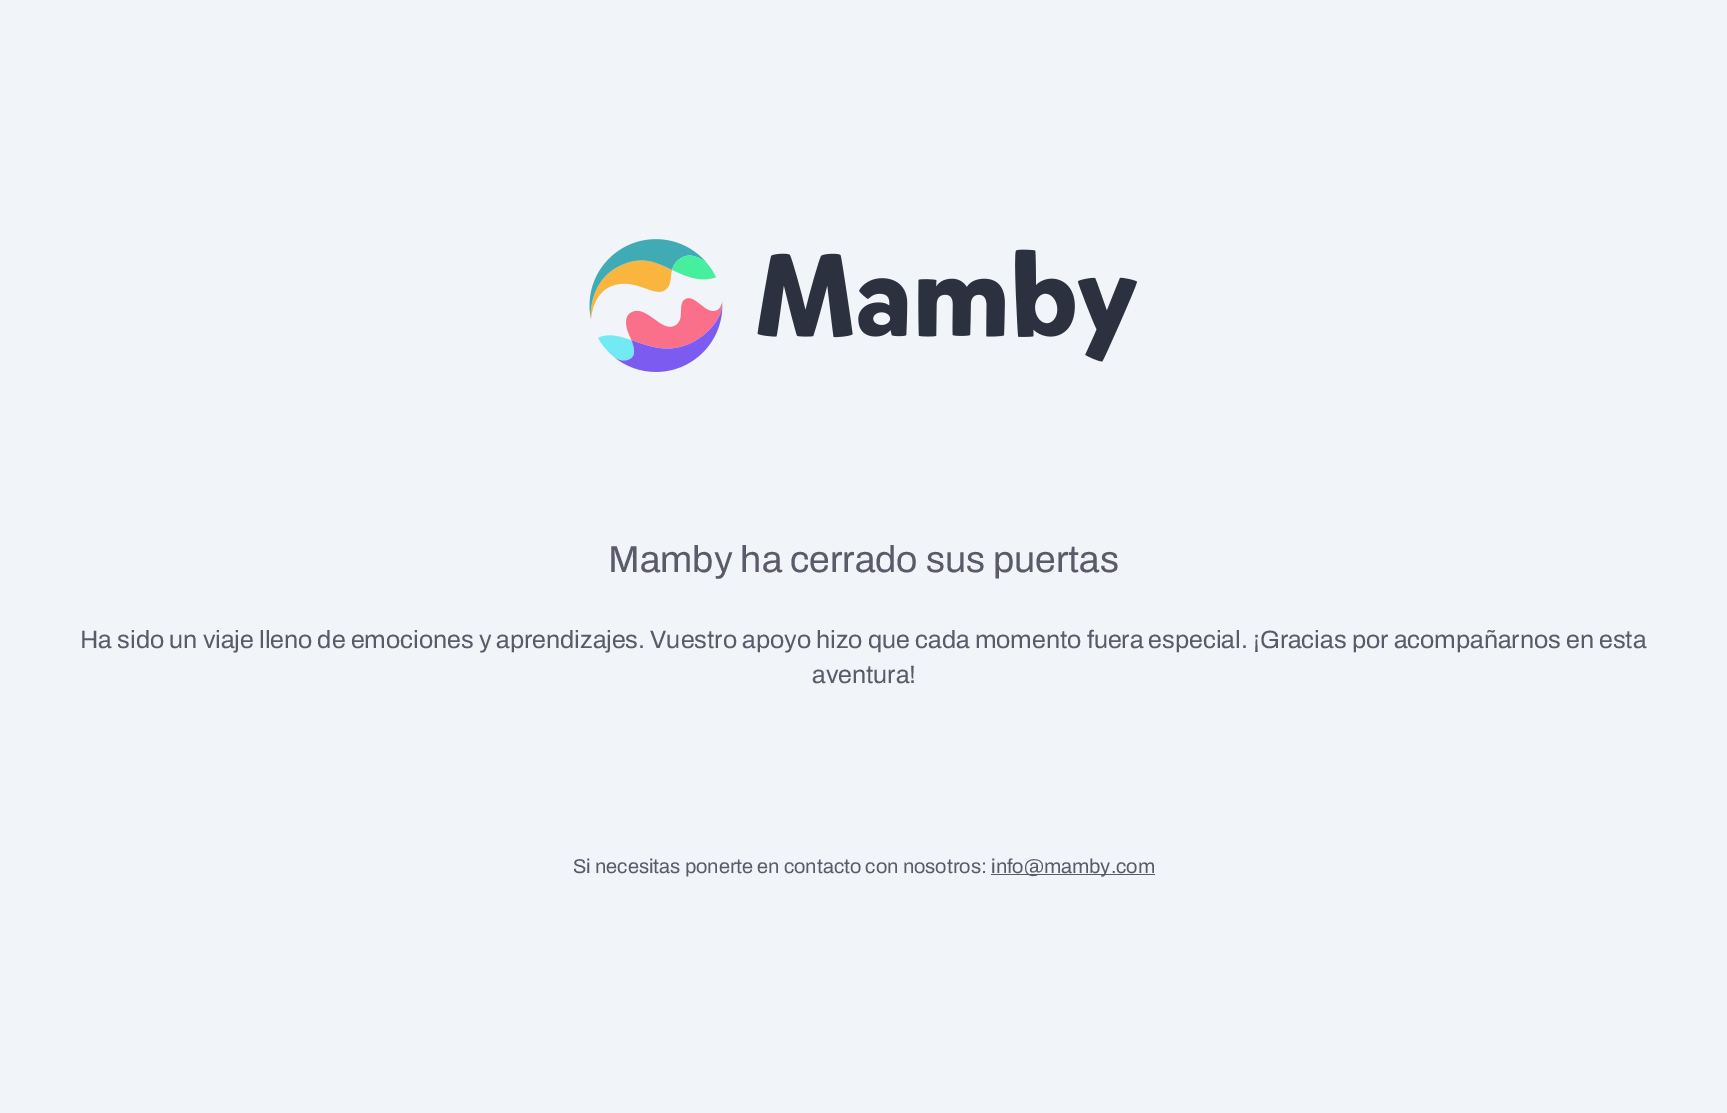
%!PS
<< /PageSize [1727 1113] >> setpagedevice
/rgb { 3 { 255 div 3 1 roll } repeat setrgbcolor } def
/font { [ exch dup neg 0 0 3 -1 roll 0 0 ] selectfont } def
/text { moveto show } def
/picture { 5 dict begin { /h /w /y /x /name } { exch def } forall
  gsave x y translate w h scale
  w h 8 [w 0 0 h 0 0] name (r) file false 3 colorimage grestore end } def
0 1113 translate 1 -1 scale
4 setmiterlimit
241 244 248 rgb
0 0 1727 1113 rectfill
(img_01.rgb) 589 239 548 133 picture
91 89 106 rgb
991 874 164 1 rectfill
/Archivo-SemiBold 37.5 font
(Mamby ha cerrado sus puertas) 608 572 text
/Archivo-SemiBold 25 font
(Ha sido un viaje lleno de emociones y aprendizajes. Vuestro apoyo hizo que cada momento fuera especial. ¡Gracias por acompañarnos en esta) 80 648 text
(aventura!) 812 683 text
/Archivo-SemiBold 20 font
(Si necesitas ponerte en contacto con nosotros:) 573 873 text
(info@mamby.com) 991 873 text
showpage
